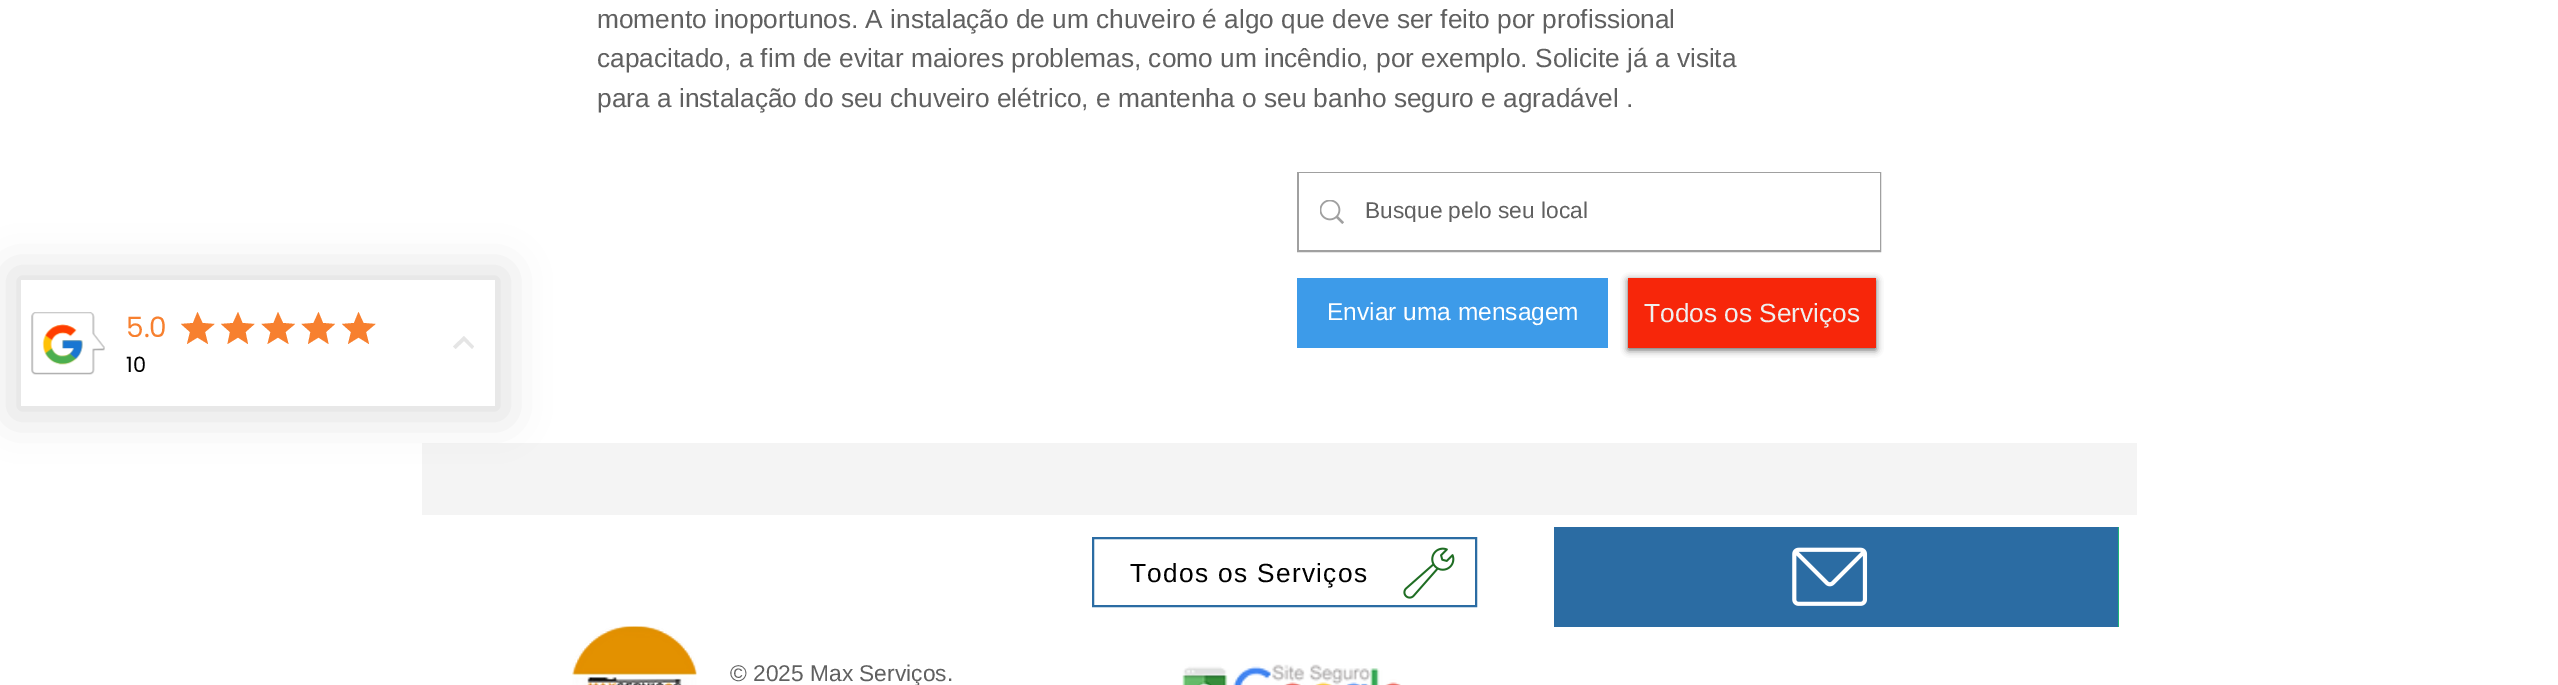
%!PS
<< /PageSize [2558 685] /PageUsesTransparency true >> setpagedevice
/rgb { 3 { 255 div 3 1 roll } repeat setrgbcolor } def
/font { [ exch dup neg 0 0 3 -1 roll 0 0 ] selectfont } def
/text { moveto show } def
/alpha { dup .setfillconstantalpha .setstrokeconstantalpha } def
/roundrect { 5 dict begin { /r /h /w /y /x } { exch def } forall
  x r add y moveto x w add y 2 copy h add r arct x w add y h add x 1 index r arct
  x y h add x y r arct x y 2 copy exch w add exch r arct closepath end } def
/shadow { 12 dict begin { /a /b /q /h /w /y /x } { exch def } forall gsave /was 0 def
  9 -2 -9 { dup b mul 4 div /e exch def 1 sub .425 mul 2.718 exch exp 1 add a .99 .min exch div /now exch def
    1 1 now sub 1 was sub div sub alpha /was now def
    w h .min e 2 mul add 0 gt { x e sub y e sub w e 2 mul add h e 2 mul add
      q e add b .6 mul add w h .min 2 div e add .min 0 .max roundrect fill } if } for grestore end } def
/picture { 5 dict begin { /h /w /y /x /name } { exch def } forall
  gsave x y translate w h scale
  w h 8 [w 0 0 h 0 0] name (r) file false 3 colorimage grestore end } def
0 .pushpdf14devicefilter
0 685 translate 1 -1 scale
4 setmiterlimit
255 255 255 rgb
0 0 2558 685 rectfill
244 244 244 rgb
422 443 1715 72 rectfill
0 0 0 rgb
11 270 495 147 0 21 0.12 shadow
255 255 255 rgb
21 280 474 126 rectfill
(img_01.rgb) 31 312 74 63 picture
247 128 47 rgb
197.5 337.5 moveto 10.5 6.5 rlineto -3 -12 rlineto 9.5 -8 rlineto -12 -1 rlineto -5 -11 rlineto -4.5 11 rlineto -12 1 rlineto 9 8 rlineto -3 12 rlineto closepath fill
238 337.5 moveto 10 6.5 rlineto -2.5 -12 rlineto 9 -8 rlineto -12 -1 rlineto -4.5 -11 rlineto -5 11 rlineto -12 1 rlineto 9 8 rlineto -2.5 12 rlineto closepath fill
278 337.5 moveto 10.5 6.5 rlineto -3 -12 rlineto 9.5 -8 rlineto -12 -1 rlineto -5 -11 rlineto -4.5 11 rlineto -12 1 rlineto 9 8 rlineto -3 12 rlineto closepath fill
318.5 337.5 moveto 10 6.5 rlineto -2.5 -12 rlineto 9 -8 rlineto -12 -1 rlineto -4.5 -11 rlineto -5 11 rlineto -12 1 rlineto 9 8 rlineto -2.5 12 rlineto closepath fill
358.5 337.5 moveto 10.5 6.5 rlineto -3 -12 rlineto 9.5 -8 rlineto -12 -1 rlineto -5 -11 rlineto -4.5 11 rlineto -12 1 rlineto 9 8 rlineto -3 12 rlineto closepath fill
229 229 229 rgb
455.5 349 moveto 8.5 -8 rlineto 8 8 rlineto 2 -2.5 rlineto -10 -10.5 rlineto -11 10.5 rlineto closepath fill
160 160 160 rgb
2 setlinewidth
1298 173 582 78 rectstroke
255 255 255 rgb
1299 173 581 77 rectfill
(img_02.rgb) 1320 200 24 24 picture
61 155 233 rgb
1297 278 311 70 rectfill
0 0 0 rgb
1628 280 248 70 0 3.5 0.6 shadow
247 38 10 rgb
1628 278 248 70 rectfill
43 108 163 rgb
1093 538 383 68 rectstroke
(img_03.rgb) 1403 547 52 52 picture
1554 527 564 100 rectfill
(img_04.rgb) 1792 547 76 59 picture
29 181 120 rgb
2118 527 1 100 rectfill
(img_05.rgb) 572 626 125 59 picture
(img_06.rgb) 572 626 125 49 picture
(img_07.rgb) 1182 664 219 21 picture
/Poppins-Regular 28 font
247 128 47 rgb
(5.0) 126 337 text
/Poppins-Regular 21 font
0 0 0 rgb
(10) 126 372 text
/LiberationSans-Regular 26.25 font
96 96 96 rgb
(momento inoportunos. A instalação de um chuveiro é algo que deve ser feito por profissional) 597 28 text
(capacitado, a fim de evitar maiores problemas, como um incêndio, por exemplo. Solicite já a visita) 597 67 text
(para a instalação do seu chuveiro elétrico, e mantenha o seu banho seguro e agradável .) 597 107 text
gsave
1365 196 441 26 rectclip
/LiberationSans-Regular 22.75 font
(Busque pelo seu local) 1365 218 text
grestore
/LiberationSans-Regular 24.5 font
255 255 255 rgb
(Enviar uma mensagem) 1327 320 text
/LiberationSans-Regular 26.25 font
239 239 239 rgb
(Todos os Serviços) 1644 322 text
0 0 0 rgb
1130 582 moveto 1.3 0 (Todos os Serviços) ashow
/LiberationSans-Regular 22.75 font
96 96 96 rgb
(© 2025 Max Serviços.) 730 681 text
.poppdf14devicefilter showpage
